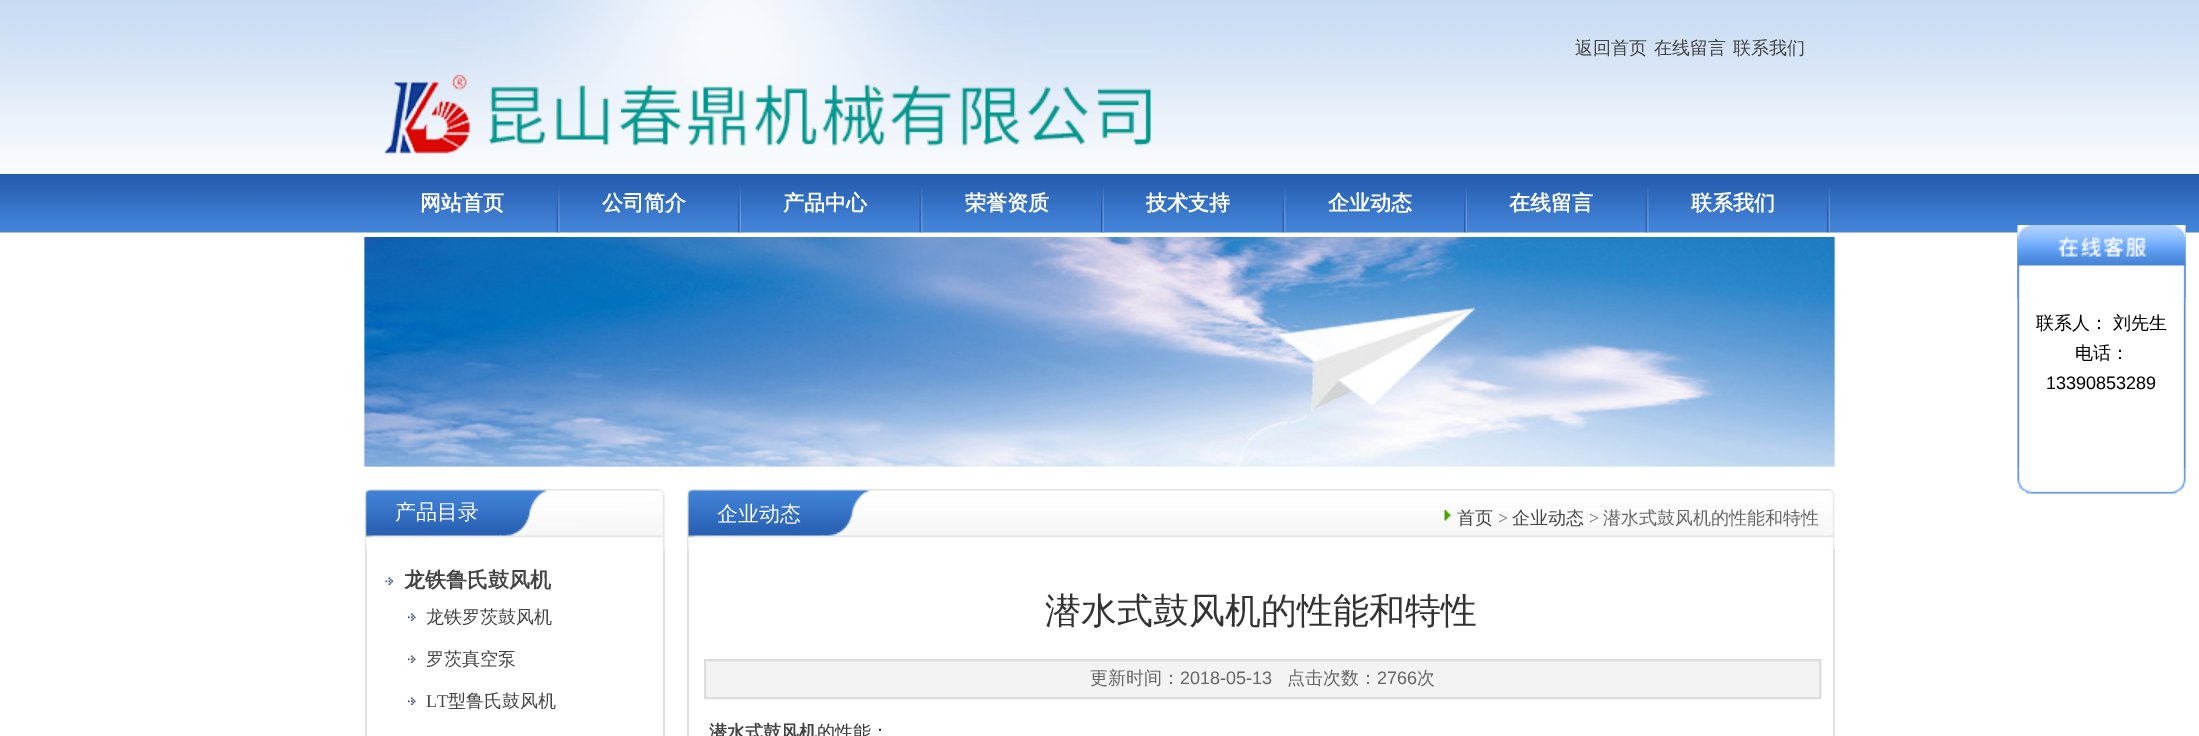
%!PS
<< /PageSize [2199 736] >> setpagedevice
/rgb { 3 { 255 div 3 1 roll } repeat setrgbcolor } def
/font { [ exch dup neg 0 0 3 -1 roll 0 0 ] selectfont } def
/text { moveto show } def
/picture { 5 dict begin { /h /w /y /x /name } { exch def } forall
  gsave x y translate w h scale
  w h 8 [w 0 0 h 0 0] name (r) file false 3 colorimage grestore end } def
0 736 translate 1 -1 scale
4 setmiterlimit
255 255 255 rgb
0 0 2199 736 rectfill
(img_01.rgb) 0 0 2199 174 picture
(img_02.rgb) 384 0 767 154 picture
(img_03.rgb) 0 174 2199 59 picture
(img_04.rgb) 556 186 4 47 picture
(img_05.rgb) 738 186 3 47 picture
(img_06.rgb) 919 186 4 47 picture
(img_05.rgb) 1101 186 3 47 picture
(img_06.rgb) 1282 186 4 47 picture
(img_05.rgb) 1464 186 3 47 picture
(img_06.rgb) 1645 186 4 47 picture
(img_05.rgb) 1827 186 3 47 picture
(img_07.rgb) 364 237 1471 230 picture
(img_08.rgb) 364 237 1471 230 picture
(img_09.rgb) 2017 225 169 74 picture
(img_11.rgb) 2017 298 169 172 picture
(img_10.rgb) 2017 225 169 74 picture
(img_12.rgb) 2017 469 169 25 picture
(img_13.rgb) 364 489 301 59 picture
227 227 227 rgb
663 548 2 188 rectfill
365 548 2 188 rectfill
(img_14.rgb) 385 577 8 8 picture
(img_15.rgb) 408 613 8 8 picture
(img_15.rgb) 408 655 8 8 picture
(img_15.rgb) 408 697 8 8 picture
(img_16.rgb) 687 489 1148 59 picture
(img_17.rgb) 1444 510 8 11 picture
1833 548 2 188 rectfill
687 548 2 188 rectfill
243 243 243 rgb
705 660 moveto 1115 0 rlineto 0 38 rlineto -1115 0 rlineto closepath gsave fill grestore
221 221 221 rgb
2 setlinewidth
stroke
/WenQuanYiZenHei-Medium 18 font
68 68 68 rgb
(返回首页) 1575 54 text
(在线留言) 1654 54 text
(联系我们) 1733 54 text
/WenQuanYiZenHei-Bold 21 font
255 255 255 rgb
(网站首页) 420 210 text
(公司简介) 602 210 text
(产品中心) 783 210 text
(荣誉资质) 965 210 text
(技术支持) 1146 210 text
(企业动态) 1328 210 text
(在线留言) 1509 210 text
(联系我们) 1691 210 text
/WenQuanYiZenHei-Medium 18 font
0 0 0 rgb
(联系人： 刘先生) 2036 329 text
(电话：) 2075 359 text
/LiberationSans-Regular 18 font
(13390853289) 2046 389 text
/WenQuanYiZenHei-Medium 21 font
255 255 255 rgb
(产品目录) 395 519 text
/WenQuanYiZenHei-Bold 21 font
68 68 68 rgb
(龙铁鲁氏鼓风机) 404 587 text
/WenQuanYiZenHei-Medium 18 font
(龙铁罗茨鼓风机) 426 623 text
(罗茨真空泵) 426 665 text
/LiberationSerif-Regular 18 font
(LT) 426 707 text
/WenQuanYiZenHei-Medium 18 font
(型鲁氏鼓风机) 448 707 text
/WenQuanYiZenHei-Medium 21 font
255 255 255 rgb
(企业动态) 717 521 text
/WenQuanYiZenHei-Medium 18 font
68 68 68 rgb
(首页) 1457 524 text
/LiberationSerif-Regular 18 font
102 102 102 rgb
(>) 1498 524 text
/WenQuanYiZenHei-Medium 18 font
68 68 68 rgb
(企业动态) 1512 524 text
/LiberationSerif-Regular 18 font
102 102 102 rgb
(>) 1589 524 text
/WenQuanYiZenHei-Medium 18 font
(潜水式鼓风机的性能和特性) 1603 524 text
/WenQuanYiZenHei-Medium 36 font
51 51 51 rgb
(潜水式鼓风机的性能和特性) 1045 623 text
/WenQuanYiZenHei-Medium 18 font
102 102 102 rgb
(更新时间：) 1090 684 text
/LiberationSans-Regular 18 font
(2018-05-13) 1180 684 text
/WenQuanYiZenHei-Medium 18 font
(点击次数：) 1287 684 text
/LiberationSans-Regular 18 font
(2766) 1377 684 text
/WenQuanYiZenHei-Medium 18 font
(次) 1417 684 text
/WenQuanYiZenHei-Bold 18 font
68 68 68 rgb
(潜水式鼓风机) 709 738 text
/WenQuanYiZenHei-Medium 18 font
51 51 51 rgb
(的性能：) 817 738 text
showpage
